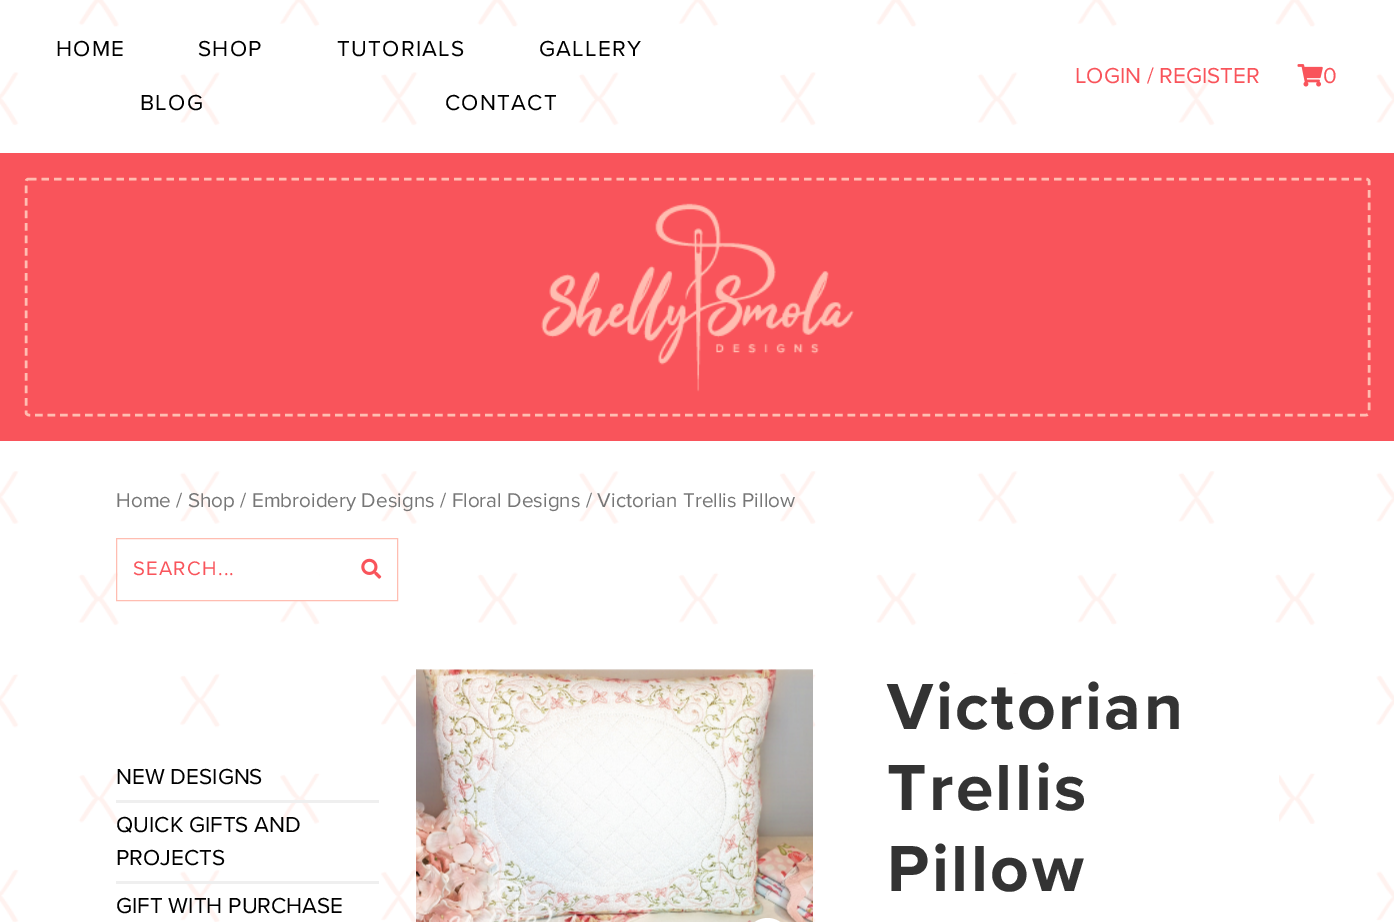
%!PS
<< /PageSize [1394 922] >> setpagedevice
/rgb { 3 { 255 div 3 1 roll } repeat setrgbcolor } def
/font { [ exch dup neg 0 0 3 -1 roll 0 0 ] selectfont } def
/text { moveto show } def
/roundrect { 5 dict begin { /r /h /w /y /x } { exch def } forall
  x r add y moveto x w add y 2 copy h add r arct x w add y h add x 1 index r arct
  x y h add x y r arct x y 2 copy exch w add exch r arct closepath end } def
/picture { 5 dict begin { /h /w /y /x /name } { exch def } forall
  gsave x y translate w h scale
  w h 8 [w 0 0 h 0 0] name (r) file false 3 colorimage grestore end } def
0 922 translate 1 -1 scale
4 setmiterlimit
255 255 255 rgb
0 0 1394 922 rectfill
(img_01.rgb) 0 0 1394 922 picture
(img_02.rgb) 1297 64 26 23 picture
249 84 91 rgb
0 153 1394 288 rectfill
255 189 177 rgb
2.5 setlinewidth
[7.5 5] 0 setdash
29 179 moveto 1337 0 rlineto 1.5 0 3 1 3 2 rcurveto 0 231.5 rlineto 0 1.5 -1.5 2.5 -3 2.5 rcurveto -1337 0 rlineto -1.5 0 -3 -1 -3 -2.5 rcurveto 0 -231.5 rlineto 0 -1 1.5 -2 3 -2 rcurveto closepath stroke
(img_03.rgb) 541 203 313 189 picture
1 setlinewidth
[] 0 setdash
116.5 538.5 281 62 rectstroke
255 255 255 rgb
118 573 201 27 rectfill
(img_04.rgb) 361 558 21 21 picture
239 239 239 rgb
116 800 263 3 rectfill
116 881 263 3 rectfill
(img_05.rgb) 416 669 1 1 picture
(img_06.rgb) 416 669 397 253 picture
255 255 255 rgb
745 918 45 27 22.5 roundrect fill
876 674 403 248 rectfill
/ProximaNova-Regular 22.5 font
0 0 0 rgb
56 56 moveto 1.25 0 (HOME) ashow
198 56 moveto 1.25 0 (SHOP) ashow
337 56 moveto 1.25 0 (TUTORIALS) ashow
539 56 moveto 1.25 0 (GALLERY) ashow
140 110 moveto 1.25 0 (BLOG) ashow
445 110 moveto 1.25 0 (CONTACT) ashow
249 84 91 rgb
(LOGIN / REGISTER) 1075 83 text
(0) 1323 83 text
/ProximaNova-Regular 20.7 font
118 118 118 rgb
(Home / Shop / Embroidery Designs / Floral Designs / Victorian Trellis Pillow) 116 507 text
/ProximaNova-Regular 20.25 font
249 84 91 rgb
133 575 moveto 1.25 0 (SEARCH...) ashow
/ProximaNova-Regular 22.5 font
0 0 0 rgb
(NEW DESIGNS) 116 784 text
(QUICK GIFTS AND) 116 832 text
(PROJECTS) 116 865 text
(GIFT WITH PURCHASE) 116 913 text
/ProximaNova-Bold 67.5 font
51 51 51 rgb
887 729 moveto 2.5 0 (Victorian) ashow
887 810 moveto 2.5 0 (Trellis) ashow
887 891 moveto 2.5 0 (Pillow) ashow
showpage
